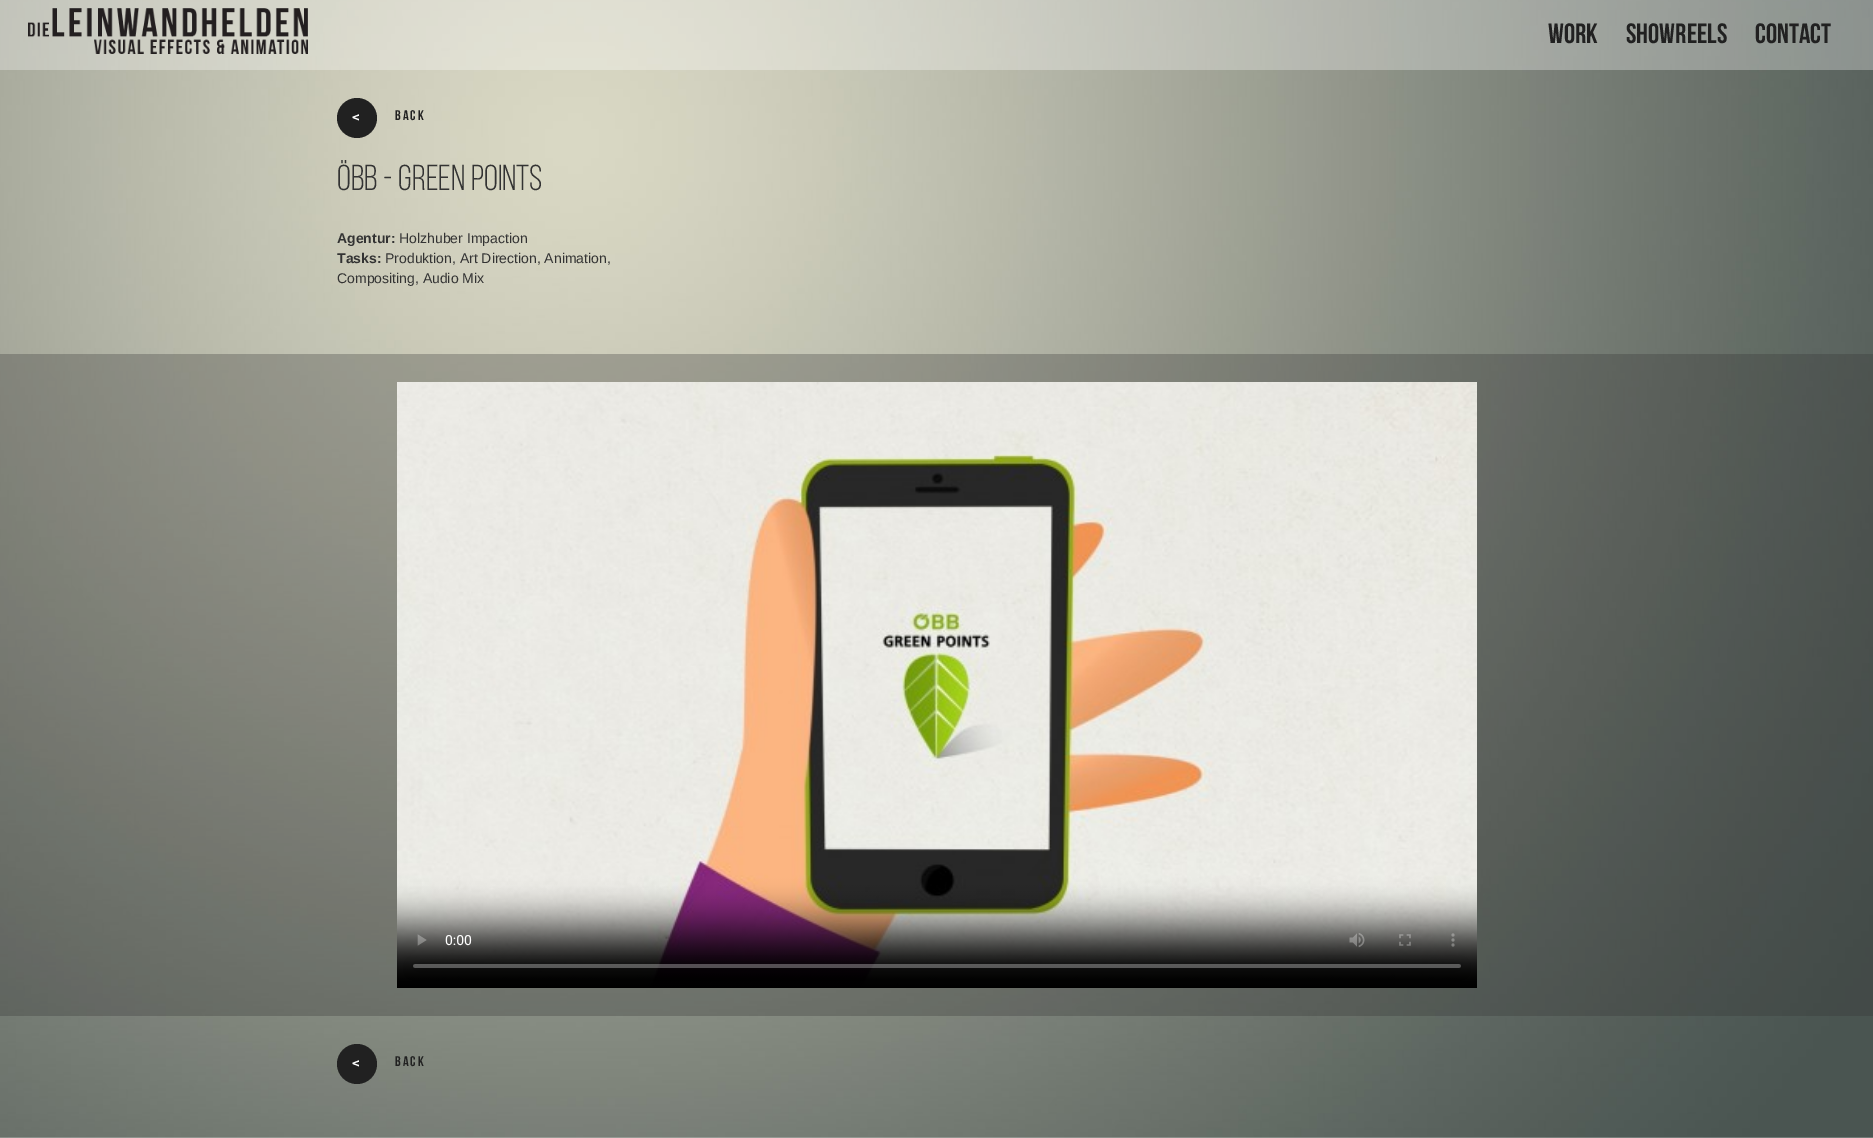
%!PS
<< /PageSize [1873 1138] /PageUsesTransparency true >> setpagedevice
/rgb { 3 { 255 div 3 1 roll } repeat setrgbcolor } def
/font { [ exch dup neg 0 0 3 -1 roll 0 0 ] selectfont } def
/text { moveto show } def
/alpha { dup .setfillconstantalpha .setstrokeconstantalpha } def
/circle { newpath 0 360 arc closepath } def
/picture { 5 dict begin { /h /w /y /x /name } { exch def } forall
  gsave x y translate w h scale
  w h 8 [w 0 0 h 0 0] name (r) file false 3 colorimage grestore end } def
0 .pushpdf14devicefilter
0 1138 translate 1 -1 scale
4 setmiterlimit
255 255 255 rgb
0 0 1873 1138 rectfill
(img_01.rgb) 0 0 1873 1138 picture
0.3 alpha
0 0 1873 70 rectfill
1 alpha
(img_02.rgb) 28 8 280 46 picture
33 33 33 rgb
357 118 20 circle fill
0.3 alpha
50 50 50 rgb
0 354 1873 662 rectfill
1 alpha
(img_03.rgb) 397 382 1080 606 picture
33 33 33 rgb
357 1064 20 circle fill
/BebasNeue-Bold 28 font
(WORK) 1548 43 text
(SHOWREELS) 1626 43 text
(CONTACT) 1755 43 text
/SourceSansPro-Bold 14 font
255 255 255 rgb
352 122 moveto 2 0 (<) ashow
/BebasNeue-Bold 14 font
33 33 33 rgb
395 120 moveto 2 0 (BACK) ashow
/BebasNeue-Regular 36 font
51 51 51 rgb
(ÖBB - Green Points) 337 190 text
/LiberationSans-Bold 14 font
(Agentur:) 337 243 text
/LiberationSans-Regular 14 font
(Holzhuber Impaction) 399 243 text
/LiberationSans-Bold 14 font
(Tasks:) 337 263 text
/LiberationSans-Regular 14 font
(Produktion, Art Direction, Animation,) 385 263 text
(Compositing, Audio Mix) 337 283 text
/SourceSansPro-Bold 14 font
255 255 255 rgb
352 1068 moveto 2 0 (<) ashow
/BebasNeue-Bold 14 font
33 33 33 rgb
395 1066 moveto 2 0 (BACK) ashow
.poppdf14devicefilter showpage
